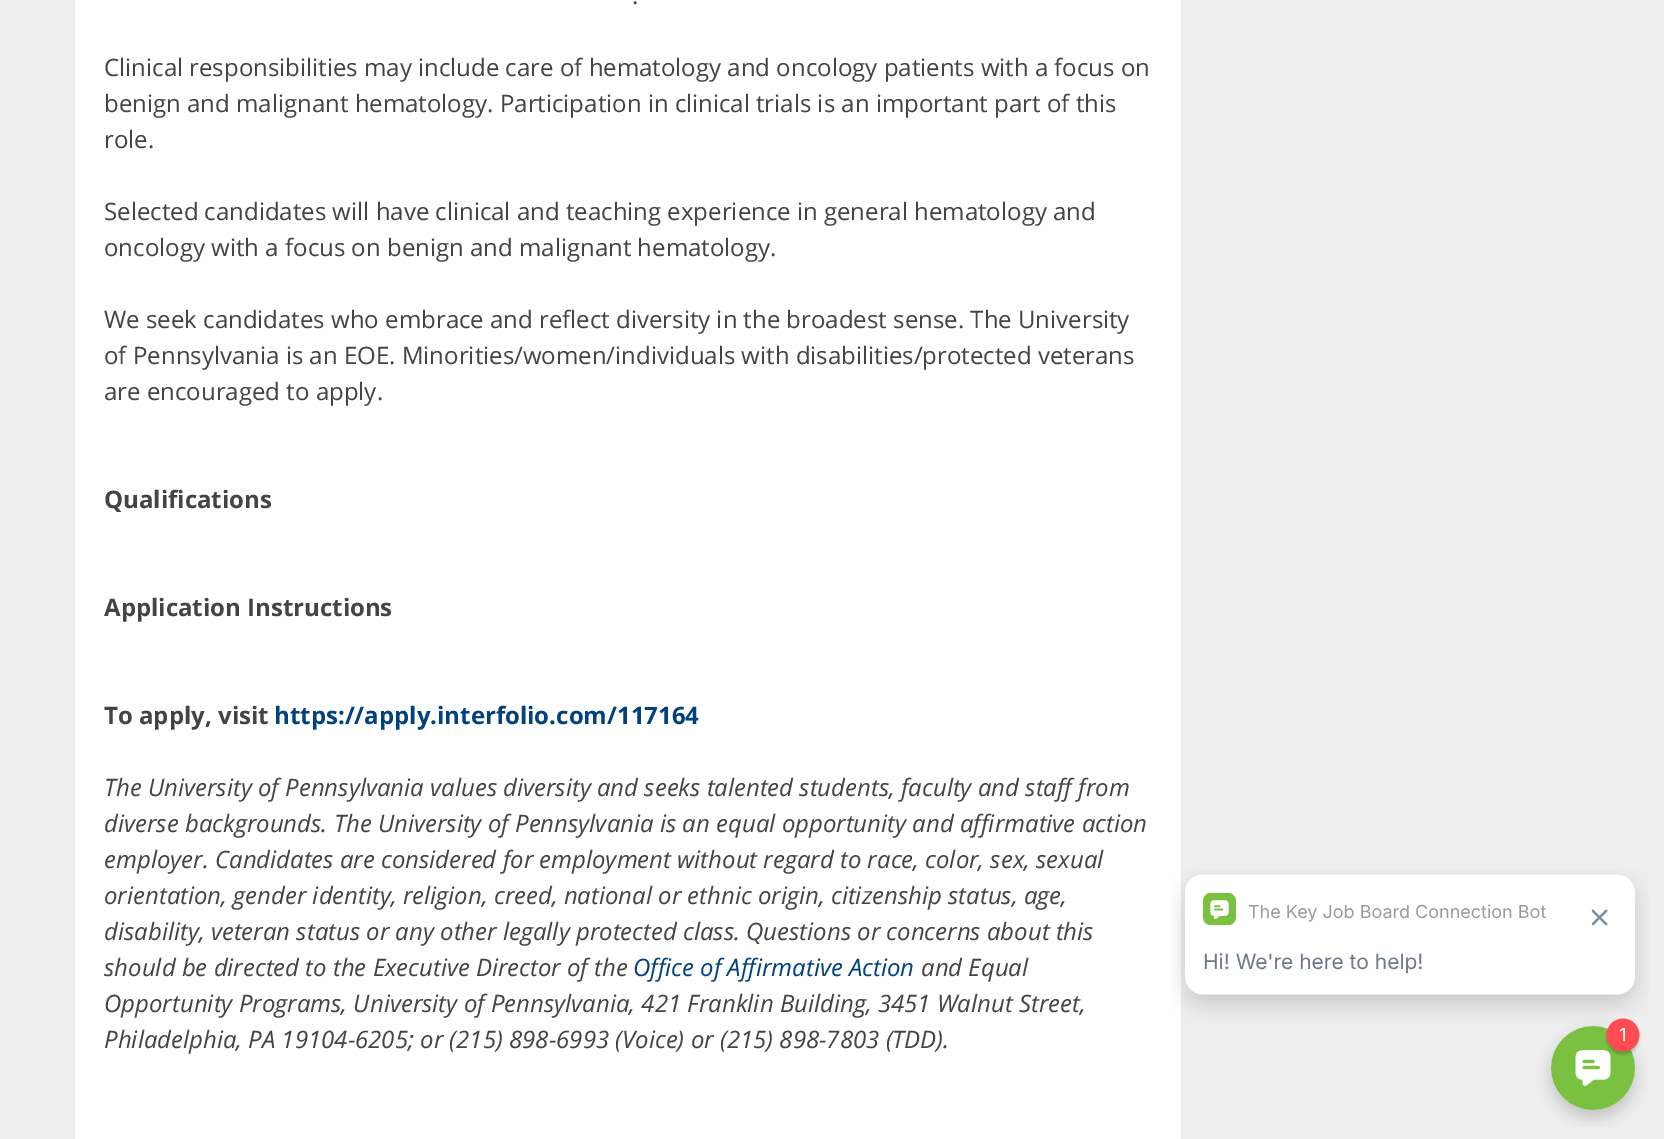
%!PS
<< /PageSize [1664 1139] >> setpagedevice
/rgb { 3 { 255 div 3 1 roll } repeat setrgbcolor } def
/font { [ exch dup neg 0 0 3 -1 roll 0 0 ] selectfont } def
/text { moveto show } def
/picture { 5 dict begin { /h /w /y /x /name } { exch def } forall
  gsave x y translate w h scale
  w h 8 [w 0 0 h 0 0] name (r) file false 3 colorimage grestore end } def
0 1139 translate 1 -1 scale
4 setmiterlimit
238 238 238 rgb
0 0 1664 1139 rectfill
255 255 255 rgb
75 0 1106 1139 rectfill
(img_01.rgb) 1170 869 479 258 picture
/OpenSans-Regular 24 font
68 68 68 rgb
(.) 632 4 text
(Clinical responsibilities may include care of hematology and oncology patients with a focus on) 104 76 text
(benign and malignant hematology. Participation in clinical trials is an important part of this) 104 112 text
(role.) 104 148 text
(Selected candidates will have clinical and teaching experience in general hematology and) 104 220 text
(oncology with a focus on benign and malignant hematology.) 104 256 text
(We seek candidates who embrace and reflect diversity in the broadest sense. The University) 104 328 text
(of Pennsylvania is an EOE. Minorities/women/individuals with disabilities/protected veterans) 104 364 text
(are encouraged to apply.) 104 400 text
/OpenSans-Bold 24 font
(Qualifications) 104 508 text
(Application Instructions) 104 616 text
(To apply, visit) 104 724 text
0 65 126 rgb
(https://apply.interfolio.com/117164) 274 724 text
/OpenSans-Italic 24 font
68 68 68 rgb
(The University of Pennsylvania values diversity and seeks talented students, faculty and staff from) 104 796 text
(diverse backgrounds. The University of Pennsylvania is an equal opportunity and affirmative action) 104 832 text
(employer. Candidates are considered for employment without regard to race, color, sex, sexual) 104 868 text
(orientation, gender identity, religion, creed, national or ethnic origin, citizenship status, age,) 104 904 text
(disability, veteran status or any other legally protected class. Questions or concerns about this) 104 940 text
(should be directed to the Executive Director of the) 104 976 text
0 65 126 rgb
(Office of Affirmative Action) 633 976 text
68 68 68 rgb
(and Equal) 921 976 text
(Opportunity Programs, University of Pennsylvania, 421 Franklin Building, 3451 Walnut Street,) 104 1012 text
(Philadelphia, PA 19104-6205; or \(215\) 898-6993 \(Voice\) or \(215\) 898-7803 \(TDD\).) 104 1048 text
showpage
